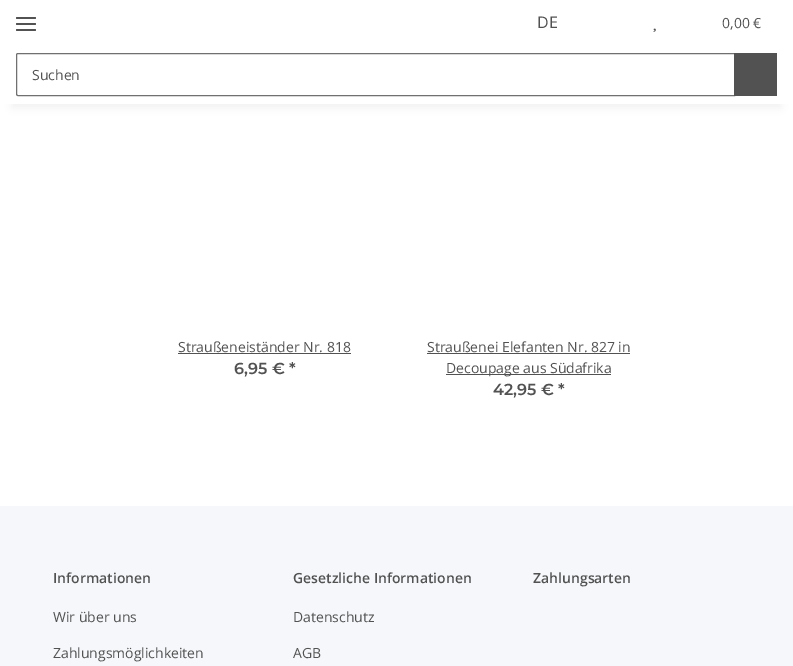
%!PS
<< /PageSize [793 666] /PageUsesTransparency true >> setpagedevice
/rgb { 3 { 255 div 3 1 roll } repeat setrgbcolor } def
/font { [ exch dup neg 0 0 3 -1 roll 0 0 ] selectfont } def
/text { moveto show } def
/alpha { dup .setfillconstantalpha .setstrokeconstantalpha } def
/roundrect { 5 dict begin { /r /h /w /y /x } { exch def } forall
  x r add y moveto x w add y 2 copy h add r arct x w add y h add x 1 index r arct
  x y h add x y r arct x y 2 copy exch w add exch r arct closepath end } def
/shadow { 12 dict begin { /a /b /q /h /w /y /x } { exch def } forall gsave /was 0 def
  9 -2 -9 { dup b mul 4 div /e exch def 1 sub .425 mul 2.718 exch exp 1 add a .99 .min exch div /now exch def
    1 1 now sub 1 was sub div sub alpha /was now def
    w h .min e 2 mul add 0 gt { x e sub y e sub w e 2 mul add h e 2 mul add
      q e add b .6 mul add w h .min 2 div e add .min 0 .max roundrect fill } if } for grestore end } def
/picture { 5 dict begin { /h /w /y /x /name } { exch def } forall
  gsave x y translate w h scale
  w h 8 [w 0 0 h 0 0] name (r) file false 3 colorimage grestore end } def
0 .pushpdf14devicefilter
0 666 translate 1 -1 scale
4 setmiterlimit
245 247 250 rgb
0 0 793 666 rectfill
255 255 255 rgb
0 104 793 402 rectfill
0 0 0 rgb
12 28 769 80 0 4.5 0.06 shadow
255 255 255 rgb
0 0 793 104 rectfill
82 82 82 rgb
16 23 20 2 1 roundrect fill
16 17 20 2 1 roundrect fill
16 29 20 2 1 roundrect fill
(img_01.rgb) 653 28 3 4 picture
112 112 112 rgb
18 53.5 moveto 716.5 0 rlineto 0 42 rlineto -716.5 0 rlineto -1 0 -1.5 -0.5 -1.5 -1.5 rcurveto 0 -39 rlineto 0 -1 0.5 -1.5 1.5 -1.5 rcurveto closepath stroke
82 82 82 rgb
734 53 43 43 rectfill
178 353 173 1 rectfill
427 353 203 1 rectfill
446 374 165 1 rectfill
/OpenSans-Regular 16 font
(DE) 537 28 text
/OpenSans-Regular 14 font
(0,00 €) 722 28 text
(Suchen) 32 80 text
(Straußeneiständer Nr. 818) 178 352 text
/Montserrat-SemiBold 16 font
(6,95 € *) 234 374 text
/OpenSans-Regular 14 font
(Straußenei Elefanten Nr. 827 in) 427 352 text
(Decoupage aus Südafrika) 446 373 text
/Montserrat-SemiBold 16 font
(42,95 € *) 493 395 text
/OpenSans-SemiBold 14 font
(Informationen) 53 583 text
/OpenSans-Regular 14 font
(Wir über uns) 53 622 text
(Zahlungsmöglichkeiten) 53 658 text
/OpenSans-SemiBold 14 font
(Gesetzliche Informationen) 293 583 text
/OpenSans-Regular 14 font
(Datenschutz) 293 622 text
(AGB) 293 658 text
/OpenSans-SemiBold 14 font
(Zahlungsarten) 533 583 text
.poppdf14devicefilter showpage
